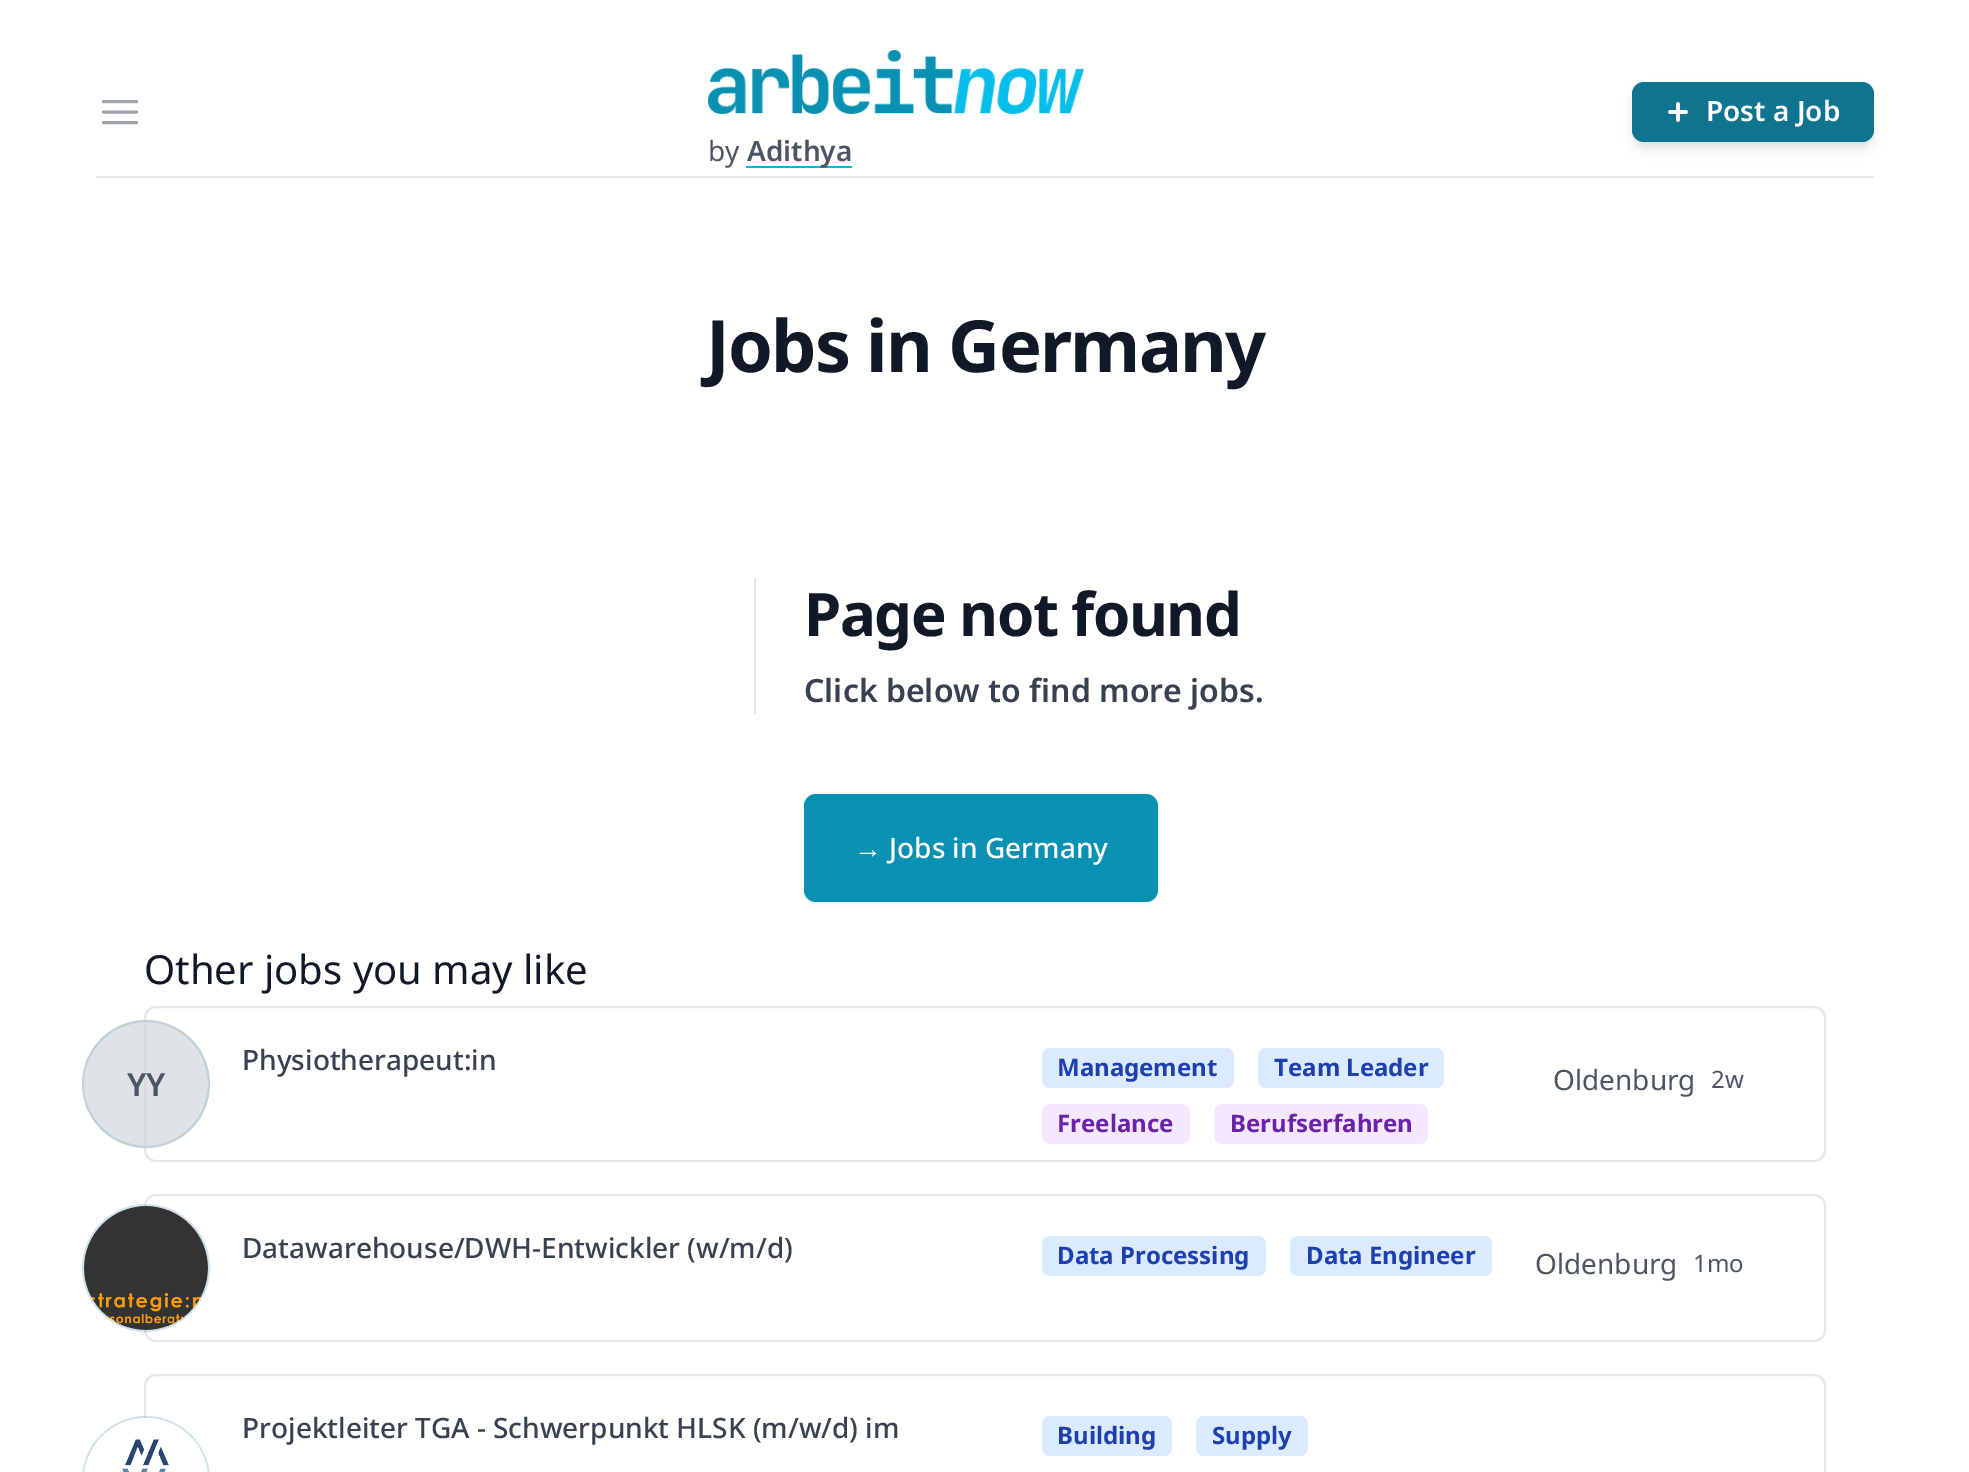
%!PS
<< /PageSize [1969 1472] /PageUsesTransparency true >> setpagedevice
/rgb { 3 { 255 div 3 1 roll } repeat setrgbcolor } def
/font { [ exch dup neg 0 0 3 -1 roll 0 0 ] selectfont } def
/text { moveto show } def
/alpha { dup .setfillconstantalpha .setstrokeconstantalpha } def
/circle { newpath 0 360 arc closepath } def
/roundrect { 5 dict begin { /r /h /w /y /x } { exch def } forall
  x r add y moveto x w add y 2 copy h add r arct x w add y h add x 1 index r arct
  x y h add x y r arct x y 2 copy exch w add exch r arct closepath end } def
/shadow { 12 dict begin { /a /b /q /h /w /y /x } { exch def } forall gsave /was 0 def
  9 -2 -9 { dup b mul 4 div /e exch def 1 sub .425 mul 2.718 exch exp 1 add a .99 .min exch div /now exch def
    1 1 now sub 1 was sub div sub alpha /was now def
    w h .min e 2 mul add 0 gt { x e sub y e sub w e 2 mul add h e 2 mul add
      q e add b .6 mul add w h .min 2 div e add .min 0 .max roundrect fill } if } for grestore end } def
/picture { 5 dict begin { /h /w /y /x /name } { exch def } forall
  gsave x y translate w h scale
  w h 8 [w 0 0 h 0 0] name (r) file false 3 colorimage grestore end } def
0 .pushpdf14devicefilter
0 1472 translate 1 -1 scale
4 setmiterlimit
255 255 255 rgb
0 0 1969 1472 rectfill
229 231 235 rgb
96 176 1778 2 rectfill
156 163 175 rgb
3 setlinewidth
1 setlinecap
1 setlinejoin
103.5 101.5 moveto 33 0 rlineto 103.5 112 moveto 33 0 rlineto 103.5 122.5 moveto 33 0 rlineto stroke
0 0 0 rgb
1636 90 234 52 8 4 0.1 shadow
1634 92 238 56 10 6 0.1 shadow
14 116 144 rgb
1632 82 242 60 12 roundrect fill
(img_01.rgb) 1668 102 20 20 picture
(img_02.rgb) 708 50 376 64 picture
6 182 212 rgb
746 166 106 2 rectfill
229 231 235 rgb
754 578 2 136 rectfill
0 0 0 rgb
804 796 354 108 12 2 0.05 shadow
8 145 178 rgb
804 794 354 108 12 roundrect fill
229 231 235 rgb
2 setlinewidth
0 setlinecap
0 setlinejoin
145 1007 1680 154 11 roundrect stroke
0.7 alpha
209 213 219 rgb
146 1084 64 circle fill
0.14 alpha
14 116 144 rgb
146 1084 63 circle stroke
1 alpha
219 234 254 rgb
1042 1048 192 40 8 roundrect fill
1258 1048 186 40 8 roundrect fill
243 232 255 rgb
1042 1104 148 40 8 roundrect fill
1214 1104 214 40 8 roundrect fill
229 231 235 rgb
145 1195 1680 146 11 roundrect stroke
0.2 alpha
14 116 144 rgb
146 1268 63 circle stroke
1 alpha
(img_03.rgb) 84 1206 124 124 picture
219 234 254 rgb
1042 1236 224 40 8 roundrect fill
1290 1236 202 40 8 roundrect fill
229 231 235 rgb
145 1375 1680 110 11 roundrect stroke
0.2 alpha
14 116 144 rgb
83 1417 126 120 63 roundrect stroke
1 alpha
(img_04.rgb) 84 1418 124 54 picture
219 234 254 rgb
1042 1416 130 40 8 roundrect fill
1196 1416 112 40 8 roundrect fill
/NotoSans-SemiBold 28 font
255 255 255 rgb
(Post a Job) 1706 121 text
/NotoSans-Regular 28 font
75 85 99 rgb
(by) 708 161 text
/NotoSans-SemiBold 28 font
(Adithya) 747 161 text
/NotoSans-Bold 72 font
17 24 39 rgb
706 372 moveto -1.75 0 (Jobs in Germany) ashow
/NotoSans-Bold 60 font
804 636 moveto -1.5 0 (Page not found) ashow
/NotoSans-SemiBold 32 font
55 65 81 rgb
(Click below to find more jobs.) 804 702 text
/LiberationSans-Regular 28 font
255 255 255 rgb
(→) 854 858 text
/NotoSans-Medium 28 font
(Jobs in Germany) 889 858 text
/NotoSans-Regular 40 font
17 24 39 rgb
(Other jobs you may like) 144 984 text
/NotoSans-SemiBold 32 font
75 85 99 rgb
(YY) 127 1096 text
/NotoSans-Medium 28 font
55 65 81 rgb
(Physiotherapeut:in) 242 1070 text
/NotoSans-Bold 24 font
30 64 175 rgb
(Management) 1057 1076 text
(Team Leader) 1274 1076 text
107 33 168 rgb
(Freelance) 1057 1132 text
(Berufserfahren) 1230 1132 text
/NotoSans-Regular 28 font
75 85 99 rgb
(Oldenburg) 1553 1090 text
/NotoSans-Regular 24 font
(2w) 1711 1088 text
/NotoSans-Medium 28 font
55 65 81 rgb
(Datawarehouse/DWH-Entwickler \(w/m/d\)) 242 1258 text
/NotoSans-Bold 24 font
30 64 175 rgb
(Data Processing) 1057 1264 text
(Data Engineer) 1306 1264 text
/NotoSans-Regular 28 font
75 85 99 rgb
(Oldenburg) 1535 1274 text
/NotoSans-Regular 24 font
(1mo) 1693 1272 text
/NotoSans-Medium 28 font
55 65 81 rgb
(Projektleiter TGA - Schwerpunkt HLSK \(m/w/d\) im) 242 1438 text
/NotoSans-Bold 24 font
30 64 175 rgb
(Building) 1057 1444 text
(Supply) 1212 1444 text
.poppdf14devicefilter showpage
